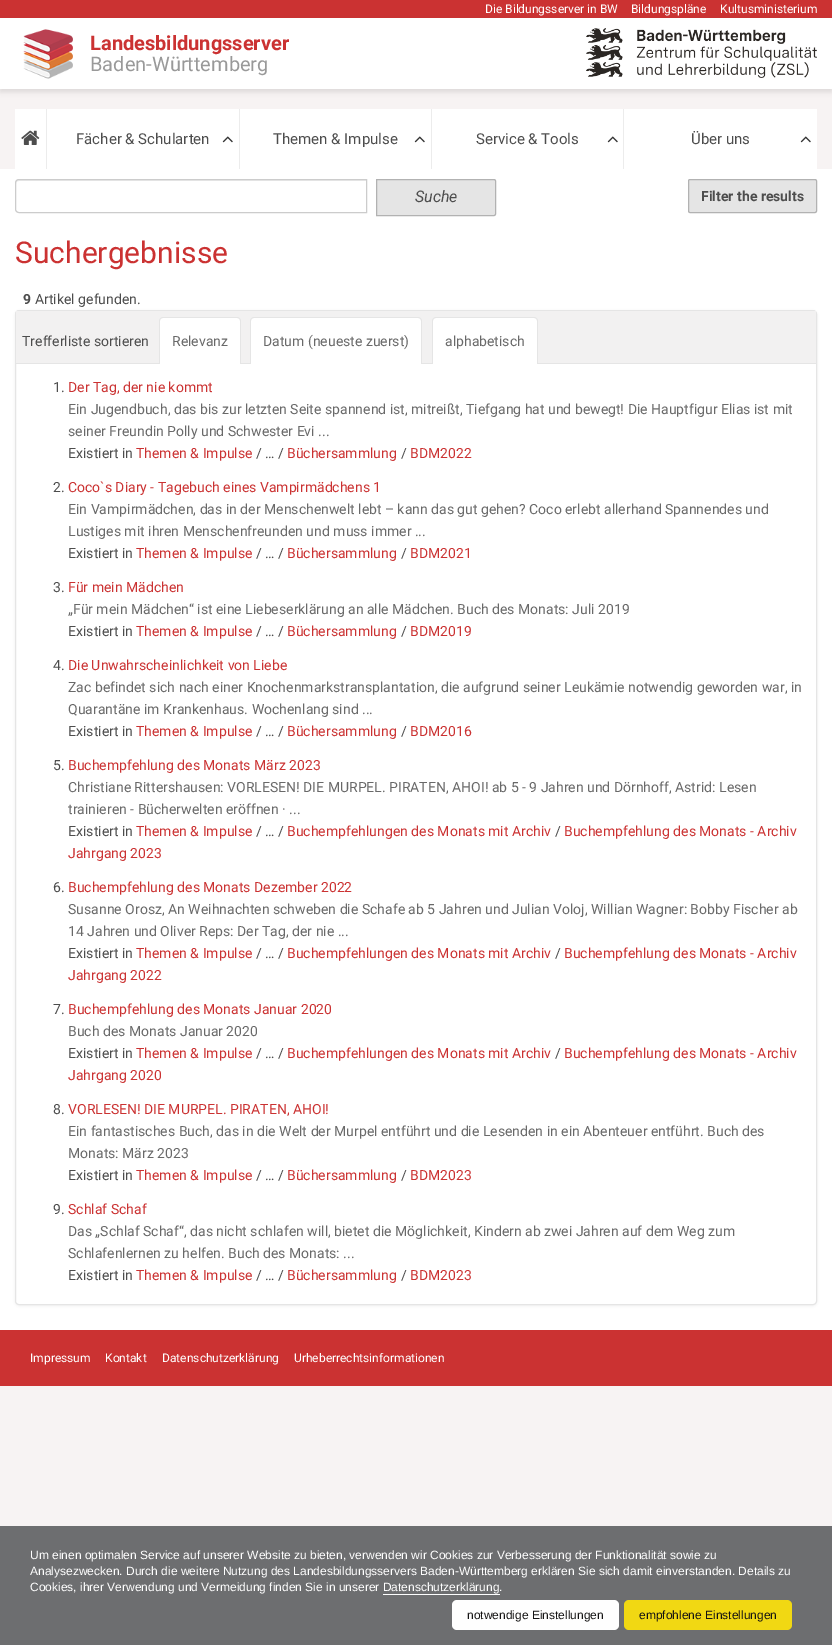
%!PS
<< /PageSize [832 1645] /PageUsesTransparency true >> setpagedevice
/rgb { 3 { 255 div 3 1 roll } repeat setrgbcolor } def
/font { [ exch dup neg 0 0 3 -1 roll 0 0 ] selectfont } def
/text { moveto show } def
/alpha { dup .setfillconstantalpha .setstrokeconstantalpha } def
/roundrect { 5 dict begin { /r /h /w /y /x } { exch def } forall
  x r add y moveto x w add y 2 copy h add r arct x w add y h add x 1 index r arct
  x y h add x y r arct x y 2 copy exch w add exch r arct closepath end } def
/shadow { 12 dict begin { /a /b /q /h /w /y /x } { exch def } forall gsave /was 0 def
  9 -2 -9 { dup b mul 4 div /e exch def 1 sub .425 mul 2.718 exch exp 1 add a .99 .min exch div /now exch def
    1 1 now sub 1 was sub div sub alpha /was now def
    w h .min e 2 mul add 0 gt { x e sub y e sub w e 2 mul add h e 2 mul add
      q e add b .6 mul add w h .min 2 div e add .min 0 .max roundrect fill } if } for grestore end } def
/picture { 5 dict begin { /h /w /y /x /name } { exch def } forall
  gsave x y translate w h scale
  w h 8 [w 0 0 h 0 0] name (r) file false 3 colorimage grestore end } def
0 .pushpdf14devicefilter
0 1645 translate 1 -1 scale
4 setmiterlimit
247 243 243 rgb
0 0 832 1645 rectfill
203 50 50 rgb
0 0 832 18 rectfill
0 0 0 rgb
0 21 832 71 0 2.5 0.1 shadow
255 255 255 rgb
0 18 832 71 rectfill
(img_01.rgb) 23 29 50 50 picture
(img_02.rgb) 586 28 231 50 picture
15 109 31 60 rectfill
236 236 236 rgb
46 109 1 60 rectfill
(img_03.rgb) 21 130 19 15 picture
255 255 255 rgb
47 109 192 60 rectfill
236 236 236 rgb
239 109 1 60 rectfill
(img_04.rgb) 222 136 11 7 picture
255 255 255 rgb
240 109 191 60 rectfill
236 236 236 rgb
431 109 1 60 rectfill
(img_04.rgb) 414 136 11 7 picture
255 255 255 rgb
432 109 191 60 rectfill
236 236 236 rgb
623 109 1 60 rectfill
(img_04.rgb) 607 136 11 7 picture
255 255 255 rgb
624 109 193 60 rectfill
(img_04.rgb) 800 136 11 7 picture
0 169 832 1161 rectfill
236 236 236 rgb
19 181 moveto 347 0 rlineto 0 -1 rlineto -347 0 rlineto -2 0 -3 1 -3 3 rcurveto 0 1 rlineto 0 -2 1 -3 3 -3 rcurveto closepath fill
204 204 204 rgb
19 179.5 moveto 347.5 0 rlineto 0 33 rlineto -347.5 0 rlineto -2 0 -3.5 -1.5 -3.5 -3.5 rcurveto 0 -26 rlineto 0 -2 1.5 -3.5 3.5 -3.5 rcurveto closepath stroke
229 229 229 rgb
376.5 179.5 moveto 117.5 0 rlineto 1 0 1.5 0.5 1.5 1.5 rcurveto 0 33 rlineto 0 1 -0.5 1.5 -1.5 1.5 rcurveto -117.5 0 rlineto closepath gsave fill grestore
178 178 178 rgb
stroke
229 229 229 rgb
688.5 179.5 128 33 1.5 roundrect gsave fill grestore
178 178 178 rgb
stroke
0 0 0 rgb
15 311 802 995 4 1.5 0.05 shadow
255 255 255 rgb
15.5 310.5 801 994 3.5 roundrect gsave fill grestore
229 229 229 rgb
stroke
242 241 241 rgb
16 311 800 52 rectfill
229 229 229 rgb
16 363 800 1 rectfill
255 255 255 rgb
163 318 moveto 74 0 rlineto 1.5 0 3 1.5 3 3 rcurveto 0 43 rlineto -80 0 rlineto 0 -43 rlineto 0 -1.5 1.5 -3 3 -3 rcurveto closepath fill
229 229 229 rgb
163 317 moveto 74 0 rlineto 2 0 4 2 4 4 rcurveto 0 43 rlineto -82 0 rlineto 0 -43 rlineto 0 -2 2 -4 4 -4 rcurveto closepath 163 318 moveto 74 0 rlineto 2 0 3 1 3 3 rcurveto 0 43 rlineto -80 0 rlineto 0 -43 rlineto 0 -2 1 -3 3 -3 rcurveto closepath eofill
255 255 255 rgb
254 318 moveto 164 0 rlineto 1.5 0 3 1.5 3 3 rcurveto 0 43 rlineto -170 0 rlineto 0 -43 rlineto 0 -1.5 1.5 -3 3 -3 rcurveto closepath fill
229 229 229 rgb
254 317 moveto 164 0 rlineto 2 0 4 2 4 4 rcurveto 0 43 rlineto -172 0 rlineto 0 -43 rlineto 0 -2 2 -4 4 -4 rcurveto closepath 254 318 moveto 164 0 rlineto 2 0 3 1 3 3 rcurveto 0 43 rlineto -170 0 rlineto 0 -43 rlineto 0 -2 1 -3 3 -3 rcurveto closepath eofill
255 255 255 rgb
436 318 moveto 98 0 rlineto 1.5 0 3 1.5 3 3 rcurveto 0 43 rlineto -104 0 rlineto 0 -43 rlineto 0 -1.5 1.5 -3 3 -3 rcurveto closepath fill
229 229 229 rgb
436 317 moveto 98 0 rlineto 2 0 4 2 4 4 rcurveto 0 43 rlineto -106 0 rlineto 0 -43 rlineto 0 -2 2 -4 4 -4 rcurveto closepath 436 318 moveto 98 0 rlineto 2 0 3 1 3 3 rcurveto 0 43 rlineto -104 0 rlineto 0 -43 rlineto 0 -2 1 -3 3 -3 rcurveto closepath eofill
203 50 50 rgb
0 1330 832 56 rectfill
109 110 112 rgb
0 1526 832 119 rectfill
254 254 254 rgb
383 1594 117 1 rectfill
452 1600 167 30 5 roundrect fill
241 216 19 rgb
624 1600 168 30 5 roundrect fill
/Roboto-Regular 12 font
255 255 255 rgb
(Die Bildungsserver in BW) 485 13 text
(Bildungspläne) 631 13 text
(Kultusministerium) 720 13 text
/Roboto-Bold 20 font
203 50 50 rgb
(Landesbildungsserver) 90 50 text
/Roboto-Regular 20 font
153 153 153 rgb
(Baden-Württemberg) 90 71 text
/Roboto-Regular 15 font
77 77 77 rgb
(Fächer & Schularten) 76 144 text
(Themen & Impulse) 273 144 text
(Service & Tools) 476 144 text
(Über uns) 691 144 text
/Roboto-Italic 16 font
(Suche) 415 202 text
/Roboto-Bold 14 font
(Filter the results) 701 201 text
/Roboto-Regular 30 font
203 50 50 rgb
(Suchergebnisse) 15 263 text
/Roboto-Bold 14 font
77 77 77 rgb
(9) 23 304 text
/Roboto-Regular 14 font
(Artikel gefunden.) 35 304 text
(Trefferliste sortieren) 22 346 text
105 105 105 rgb
(Relevanz) 172 346 text
(Datum \(neueste zuerst\)) 263 346 text
(alphabetisch) 445 346 text
77 77 77 rgb
(1.) 53 392 text
203 50 50 rgb
(Der Tag, der nie kommt) 68 392 text
105 105 105 rgb
(Ein Jugendbuch, das bis zur letzten Seite spannend ist, mitreißt, Tiefgang hat und bewegt! Die Hauptfigur Elias ist mit) 68 414 text
(seiner Freundin Polly und Schwester Evi ...) 68 436 text
77 77 77 rgb
(Existiert in) 68 458 text
203 50 50 rgb
(Themen & Impulse) 136 458 text
77 77 77 rgb
(/ … /) 256 458 text
203 50 50 rgb
(Büchersammlung) 287 458 text
77 77 77 rgb
(/) 401 458 text
203 50 50 rgb
(BDM2022) 410 458 text
77 77 77 rgb
(2.) 53 492 text
203 50 50 rgb
(Coco`s Diary - Tagebuch eines Vampirmädchens 1) 68 492 text
105 105 105 rgb
(Ein Vampirmädchen, das in der Menschenwelt lebt – kann das gut gehen? Coco erlebt allerhand Spannendes und) 68 514 text
(Lustiges mit ihren Menschenfreunden und muss immer ...) 68 536 text
77 77 77 rgb
(Existiert in) 68 558 text
203 50 50 rgb
(Themen & Impulse) 136 558 text
77 77 77 rgb
(/ … /) 256 558 text
203 50 50 rgb
(Büchersammlung) 287 558 text
77 77 77 rgb
(/) 401 558 text
203 50 50 rgb
(BDM2021) 410 558 text
77 77 77 rgb
(3.) 53 592 text
203 50 50 rgb
(Für mein Mädchen) 68 592 text
105 105 105 rgb
(„Für mein Mädchen“ ist eine Liebeserklärung an alle Mädchen. Buch des Monats: Juli 2019) 68 614 text
77 77 77 rgb
(Existiert in) 68 636 text
203 50 50 rgb
(Themen & Impulse) 136 636 text
77 77 77 rgb
(/ … /) 256 636 text
203 50 50 rgb
(Büchersammlung) 287 636 text
77 77 77 rgb
(/) 401 636 text
203 50 50 rgb
(BDM2019) 410 636 text
77 77 77 rgb
(4.) 53 670 text
203 50 50 rgb
(Die Unwahrscheinlichkeit von Liebe) 68 670 text
105 105 105 rgb
(Zac befindet sich nach einer Knochenmarkstransplantation, die aufgrund seiner Leukämie notwendig geworden war, in) 68 692 text
(Quarantäne im Krankenhaus. Wochenlang sind ...) 68 714 text
77 77 77 rgb
(Existiert in) 68 736 text
203 50 50 rgb
(Themen & Impulse) 136 736 text
77 77 77 rgb
(/ … /) 256 736 text
203 50 50 rgb
(Büchersammlung) 287 736 text
77 77 77 rgb
(/) 401 736 text
203 50 50 rgb
(BDM2016) 410 736 text
77 77 77 rgb
(5.) 53 770 text
203 50 50 rgb
(Buchempfehlung des Monats März 2023) 68 770 text
105 105 105 rgb
(Christiane Rittershausen: VORLESEN! DIE MURPEL. PIRATEN, AHOI! ab 5 - 9 Jahren und Dörnhoff, Astrid: Lesen) 68 792 text
(trainieren - Bücherwelten eröffnen · ...) 68 814 text
77 77 77 rgb
(Existiert in) 68 836 text
203 50 50 rgb
(Themen & Impulse) 136 836 text
77 77 77 rgb
(/ … /) 256 836 text
203 50 50 rgb
(Buchempfehlungen des Monats mit Archiv) 287 836 text
77 77 77 rgb
(/) 555 836 text
203 50 50 rgb
(Buchempfehlung des Monats - Archiv) 564 836 text
(Jahrgang 2023) 68 858 text
77 77 77 rgb
(6.) 53 892 text
203 50 50 rgb
(Buchempfehlung des Monats Dezember 2022) 68 892 text
105 105 105 rgb
(Susanne Orosz, An Weihnachten schweben die Schafe ab 5 Jahren und Julian Voloj, Willian Wagner: Bobby Fischer ab) 68 914 text
(14 Jahren und Oliver Reps: Der Tag, der nie ...) 68 936 text
77 77 77 rgb
(Existiert in) 68 958 text
203 50 50 rgb
(Themen & Impulse) 136 958 text
77 77 77 rgb
(/ … /) 256 958 text
203 50 50 rgb
(Buchempfehlungen des Monats mit Archiv) 287 958 text
77 77 77 rgb
(/) 555 958 text
203 50 50 rgb
(Buchempfehlung des Monats - Archiv) 564 958 text
(Jahrgang 2022) 68 980 text
77 77 77 rgb
(7.) 53 1014 text
203 50 50 rgb
(Buchempfehlung des Monats Januar 2020) 68 1014 text
105 105 105 rgb
(Buch des Monats Januar 2020) 68 1036 text
77 77 77 rgb
(Existiert in) 68 1058 text
203 50 50 rgb
(Themen & Impulse) 136 1058 text
77 77 77 rgb
(/ … /) 256 1058 text
203 50 50 rgb
(Buchempfehlungen des Monats mit Archiv) 287 1058 text
77 77 77 rgb
(/) 555 1058 text
203 50 50 rgb
(Buchempfehlung des Monats - Archiv) 564 1058 text
(Jahrgang 2020) 68 1080 text
77 77 77 rgb
(8.) 53 1114 text
203 50 50 rgb
(VORLESEN! DIE MURPEL. PIRATEN, AHOI!) 68 1114 text
105 105 105 rgb
(Ein fantastisches Buch, das in die Welt der Murpel entführt und die Lesenden in ein Abenteuer entführt. Buch des) 68 1136 text
(Monats: März 2023) 68 1158 text
77 77 77 rgb
(Existiert in) 68 1180 text
203 50 50 rgb
(Themen & Impulse) 136 1180 text
77 77 77 rgb
(/ … /) 256 1180 text
203 50 50 rgb
(Büchersammlung) 287 1180 text
77 77 77 rgb
(/) 401 1180 text
203 50 50 rgb
(BDM2023) 410 1180 text
77 77 77 rgb
(9.) 53 1214 text
203 50 50 rgb
(Schlaf Schaf) 68 1214 text
105 105 105 rgb
(Das „Schlaf Schaf“, das nicht schlafen will, bietet die Möglichkeit, Kindern ab zwei Jahren auf dem Weg zum) 68 1236 text
(Schlafenlernen zu helfen. Buch des Monats: ...) 68 1258 text
77 77 77 rgb
(Existiert in) 68 1280 text
203 50 50 rgb
(Themen & Impulse) 136 1280 text
77 77 77 rgb
(/ … /) 256 1280 text
203 50 50 rgb
(Büchersammlung) 287 1280 text
77 77 77 rgb
(/) 401 1280 text
203 50 50 rgb
(BDM2023) 410 1280 text
/Roboto-Regular 12 font
255 255 255 rgb
(Impressum) 30 1362 text
(Kontakt) 105 1362 text
(Datenschutzerklärung) 162 1362 text
(Urheberrechtsinformationen) 294 1362 text
/LiberationSans-Regular 12 font
(Um einen optimalen Service auf unserer Website zu bieten, verwenden wir Cookies zur Verbesserung der Funktionalität sowie zu) 30 1559 text
(Analysezwecken. Durch die weitere Nutzung des Landesbildungsservers Baden-Württemberg erklären Sie sich damit einverstanden. Details zu) 30 1575 text
(Cookies, ihrer Verwendung und Vermeidung finden Sie in unserer Datenschutzerklärung.) 30 1591 text
20 19 19 rgb
(notwendige Einstellungen) 467 1619 text
(empfohlene Einstellungen) 639 1619 text
.poppdf14devicefilter showpage
